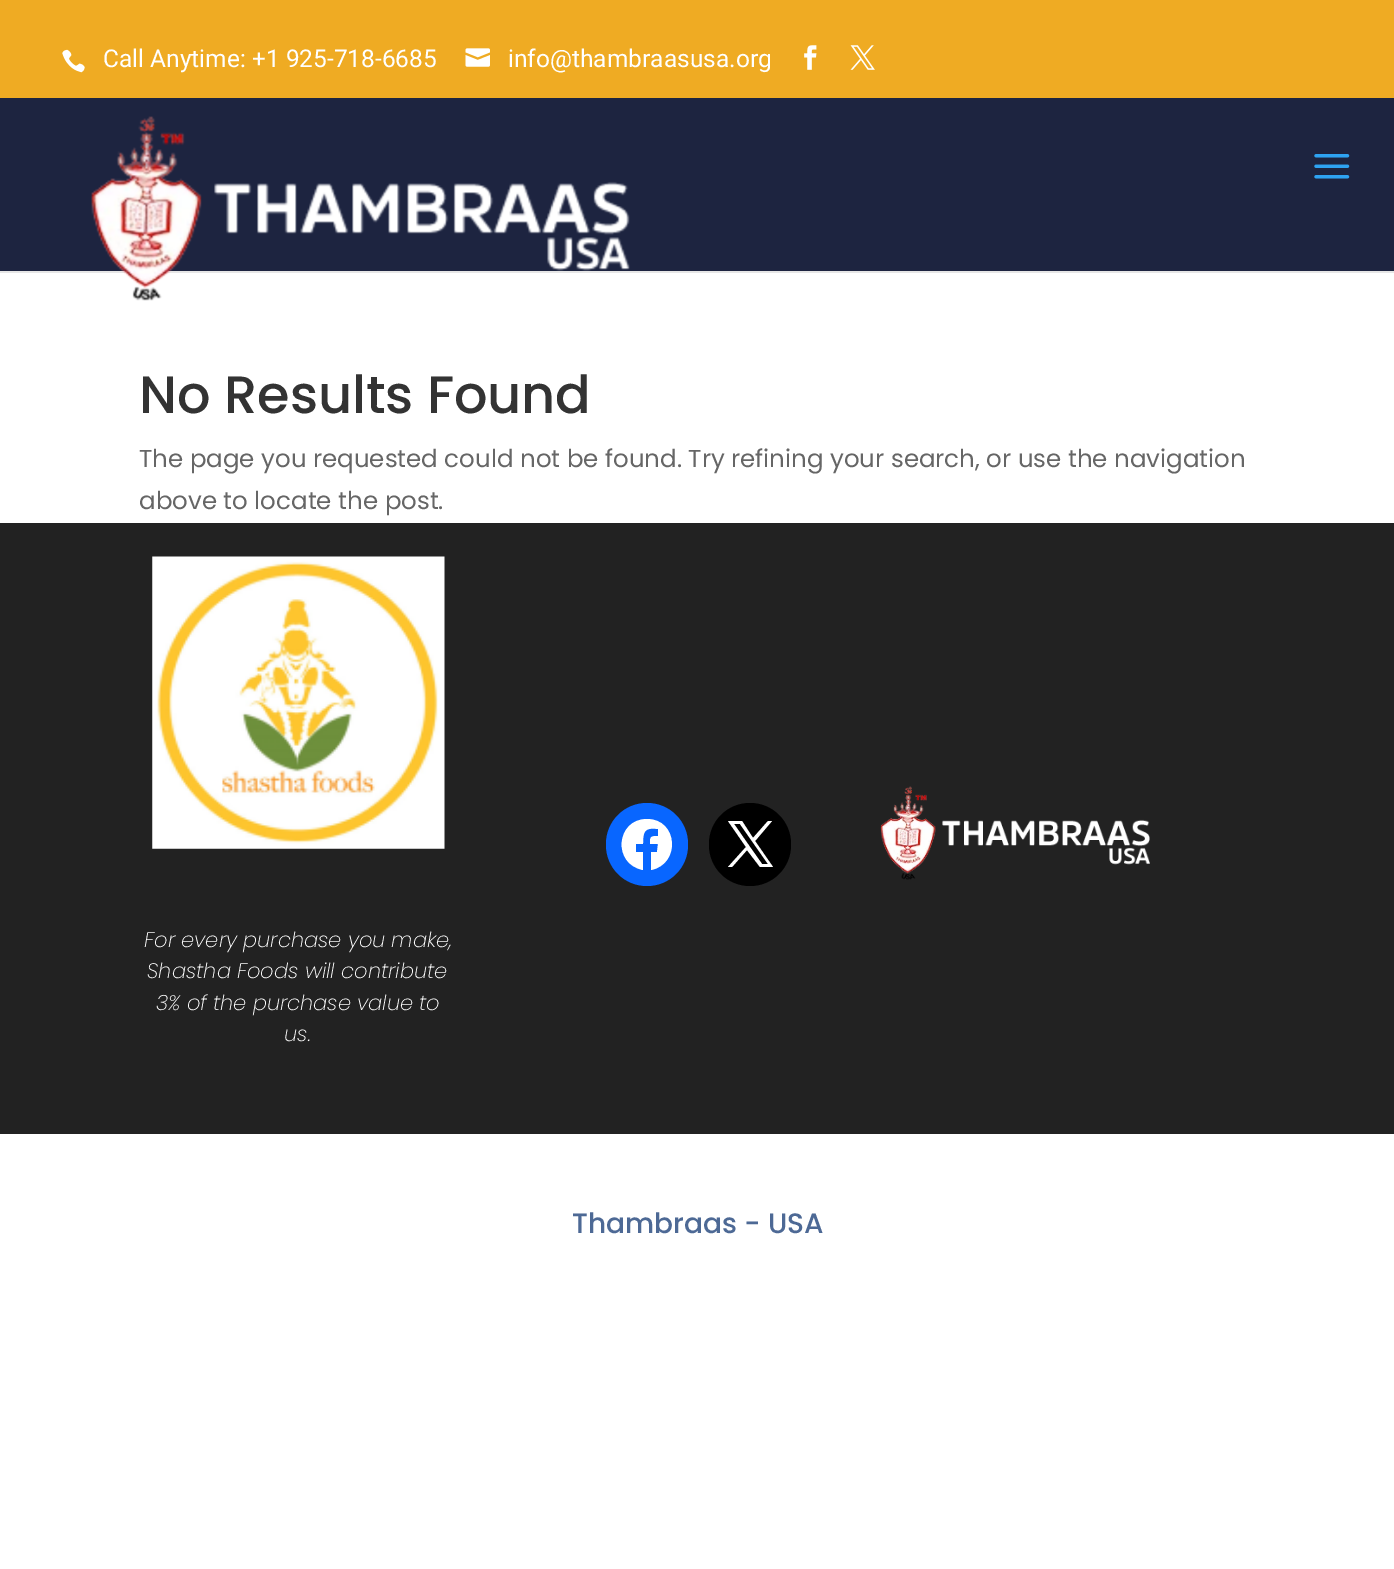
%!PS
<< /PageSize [1394 1569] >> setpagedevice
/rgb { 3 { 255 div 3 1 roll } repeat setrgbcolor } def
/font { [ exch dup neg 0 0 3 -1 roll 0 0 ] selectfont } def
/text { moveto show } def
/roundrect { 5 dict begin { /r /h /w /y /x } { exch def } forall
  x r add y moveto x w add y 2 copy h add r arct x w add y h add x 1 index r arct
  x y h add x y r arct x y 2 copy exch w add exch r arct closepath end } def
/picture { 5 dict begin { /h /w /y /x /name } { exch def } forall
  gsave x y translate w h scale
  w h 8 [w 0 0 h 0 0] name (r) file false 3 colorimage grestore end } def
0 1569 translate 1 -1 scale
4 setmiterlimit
255 255 255 rgb
0 0 1394 1569 rectfill
239 171 35 rgb
0 0 1394 98 rectfill
(img_01.rgb) 62 49 23 24 picture
(img_02.rgb) 465 48 25 19 picture
(img_03.rgb) 804 45 13 25 picture
(img_04.rgb) 850 45 25 25 picture
230 230 230 rgb
0 271 moveto 0 2 rlineto 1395 0 rlineto 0 -173 rlineto 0 171 rlineto closepath fill
29 36 64 rgb
0 98 1394 173 rectfill
(img_05.rgb) 91 116 539 185 picture
(img_06.rgb) 1314 154 36 25 picture
34 34 34 rgb
0 523 1394 611 rectfill
8 102 255 rgb
606 803 82 83 41 roundrect fill
255 255 255 rgb
647 819 moveto -31 0 -35 45 -4 51 rcurveto 0 -18 rlineto -7 0 rlineto 0 -8 rlineto 7 0 rlineto 0 -12 1 -17 15 -15 rcurveto 0 7 rlineto -8 0 -8 1 -8 8 rcurveto 8 0 rlineto -1 8 rlineto -6 0 rlineto 0 18 rlineto 30 -6 27 -51 -4 -51 rcurveto closepath fill
0 0 0 rgb
709 803 82 83 41 roundrect fill
255 255 255 rgb
755 841 moveto 17 -20 rlineto -4 0 rlineto -15 17 rlineto -11 -17 rlineto -14 0 rlineto 18 26 rlineto -18 20 rlineto 4 0 rlineto 15 -17 rlineto 13 17 rlineto 13 0 rlineto closepath 750 847 moveto -16 -23 rlineto 6 0 rlineto 28 40 rlineto -6 0 rlineto closepath fill
(img_07.rgb) 880 786 270 94 picture
(img_08.rgb) 152 556 293 293 picture
/Roboto-Regular 24.5 font
(Call Anytime: +1 925-718-6685) 103 67 text
(info@thambraasusa.org) 508 67 text
/Poppins-Medium 52.5 font
51 51 51 rgb
(No Results Found) 139 413 text
/Poppins-Regular 24.5 font
102 102 102 rgb
(The page you requested could not be found. Try refining your search, or use the navigation) 139 467 text
(above to locate the post.) 139 509 text
/Poppins-ExtraLightItalic 21 font
255 255 255 rgb
(For every purchase you make,) 144 947 text
(Shastha Foods will contribute) 147 978 text
(3% of the purchase value to) 156 1010 text
(us.) 284 1041 text
/Poppins-Medium 28 font
77 105 149 rgb
(Thambraas - USA) 572 1233 text
showpage
